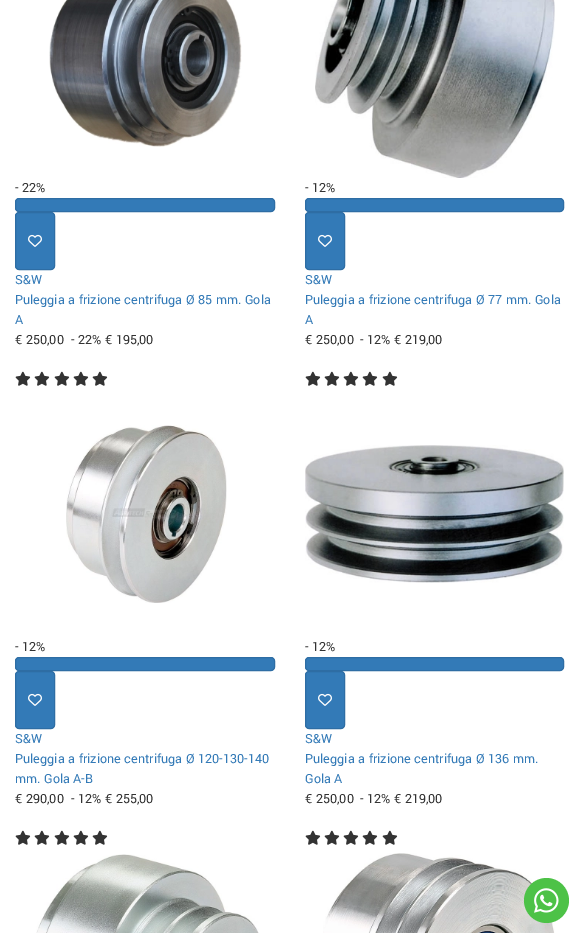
%!PS
<< /PageSize [579 933] >> setpagedevice
/rgb { 3 { 255 div 3 1 roll } repeat setrgbcolor } def
/font { [ exch dup neg 0 0 3 -1 roll 0 0 ] selectfont } def
/text { moveto show } def
/circle { newpath 0 360 arc closepath } def
/roundrect { 5 dict begin { /r /h /w /y /x } { exch def } forall
  x r add y moveto x w add y 2 copy h add r arct x w add y h add x 1 index r arct
  x y h add x y r arct x y 2 copy exch w add exch r arct closepath end } def
/picture { 5 dict begin { /h /w /y /x /name } { exch def } forall
  gsave x y translate w h scale
  w h 8 [w 0 0 h 0 0] name (r) file false 3 colorimage grestore end } def
0 933 translate 1 -1 scale
4 setmiterlimit
255 255 255 rgb
0 0 579 933 rectfill
(img_01.rgb) 49 0 193 147 picture
51 122 183 rgb
15.5 198.5 259 13 3.5 roundrect gsave fill grestore
46 109 164 rgb
stroke
51 122 183 rgb
15.5 212.5 39 57 3.5 roundrect gsave fill grestore
46 109 164 rgb
stroke
(img_02.rgb) 28 234 14 13 picture
(img_03.rgb) 15 371 16 15 picture
(img_03.rgb) 34 371 16 15 picture
(img_03.rgb) 54 371 16 15 picture
(img_03.rgb) 73 371 16 15 picture
(img_03.rgb) 92 371 16 15 picture
(img_04.rgb) 315 0 240 178 picture
51 122 183 rgb
305.5 198.5 258 13 3.5 roundrect gsave fill grestore
46 109 164 rgb
stroke
51 122 183 rgb
305.5 212.5 39 57 3.5 roundrect gsave fill grestore
46 109 164 rgb
stroke
(img_02.rgb) 318 234 14 13 picture
(img_03.rgb) 305 371 16 15 picture
(img_03.rgb) 324 371 16 15 picture
(img_03.rgb) 343 371 16 15 picture
(img_03.rgb) 362 371 16 15 picture
(img_03.rgb) 382 371 16 15 picture
(img_05.rgb) 66 425 161 178 picture
51 122 183 rgb
15.5 657.5 259 13 3.5 roundrect gsave fill grestore
46 109 164 rgb
stroke
51 122 183 rgb
15.5 671.5 39 57 3.5 roundrect gsave fill grestore
46 109 164 rgb
stroke
(img_02.rgb) 28 693 14 13 picture
(img_03.rgb) 15 830 16 15 picture
(img_03.rgb) 34 830 16 15 picture
(img_03.rgb) 54 830 16 15 picture
(img_03.rgb) 73 830 16 15 picture
(img_03.rgb) 92 830 16 15 picture
(img_06.rgb) 305 445 259 138 picture
51 122 183 rgb
305.5 657.5 258 13 3.5 roundrect gsave fill grestore
46 109 164 rgb
stroke
51 122 183 rgb
305.5 671.5 39 57 3.5 roundrect gsave fill grestore
46 109 164 rgb
stroke
(img_02.rgb) 318 693 14 13 picture
(img_03.rgb) 305 830 16 15 picture
(img_03.rgb) 324 830 16 15 picture
(img_03.rgb) 343 830 16 15 picture
(img_03.rgb) 362 830 16 15 picture
(img_03.rgb) 382 830 16 15 picture
(img_07.rgb) 36 854 223 79 picture
(img_08.rgb) 323 853 232 80 picture
77 194 71 rgb
546.5 900.5 22.5 circle fill
(img_09.rgb) 534 888 25 25 picture
/Yantramanav-Regular 14 font
51 51 51 rgb
(- 22%) 15 192 text
51 122 183 rgb
(S&W) 15 284 text
(Puleggia a frizione centrifuga Ø 85 mm. Gola) 15 304 text
(A) 15 324 text
51 51 51 rgb
(€ 250,00) 15 344 text
(- 22% € 195,00) 71 344 text
(- 12%) 305 192 text
51 122 183 rgb
(S&W) 305 284 text
(Puleggia a frizione centrifuga Ø 77 mm. Gola) 305 304 text
(A) 305 324 text
51 51 51 rgb
(€ 250,00) 305 344 text
(- 12% € 219,00) 360 344 text
(- 12%) 15 651 text
51 122 183 rgb
(S&W) 15 743 text
(Puleggia a frizione centrifuga Ø 120-130-140) 15 763 text
(mm. Gola A-B) 15 783 text
51 51 51 rgb
(€ 290,00) 15 803 text
(- 12% € 255,00) 71 803 text
(- 12%) 305 651 text
51 122 183 rgb
(S&W) 305 743 text
(Puleggia a frizione centrifuga Ø 136 mm.) 305 763 text
(Gola A) 305 783 text
51 51 51 rgb
(€ 250,00) 305 803 text
(- 12% € 219,00) 360 803 text
showpage
